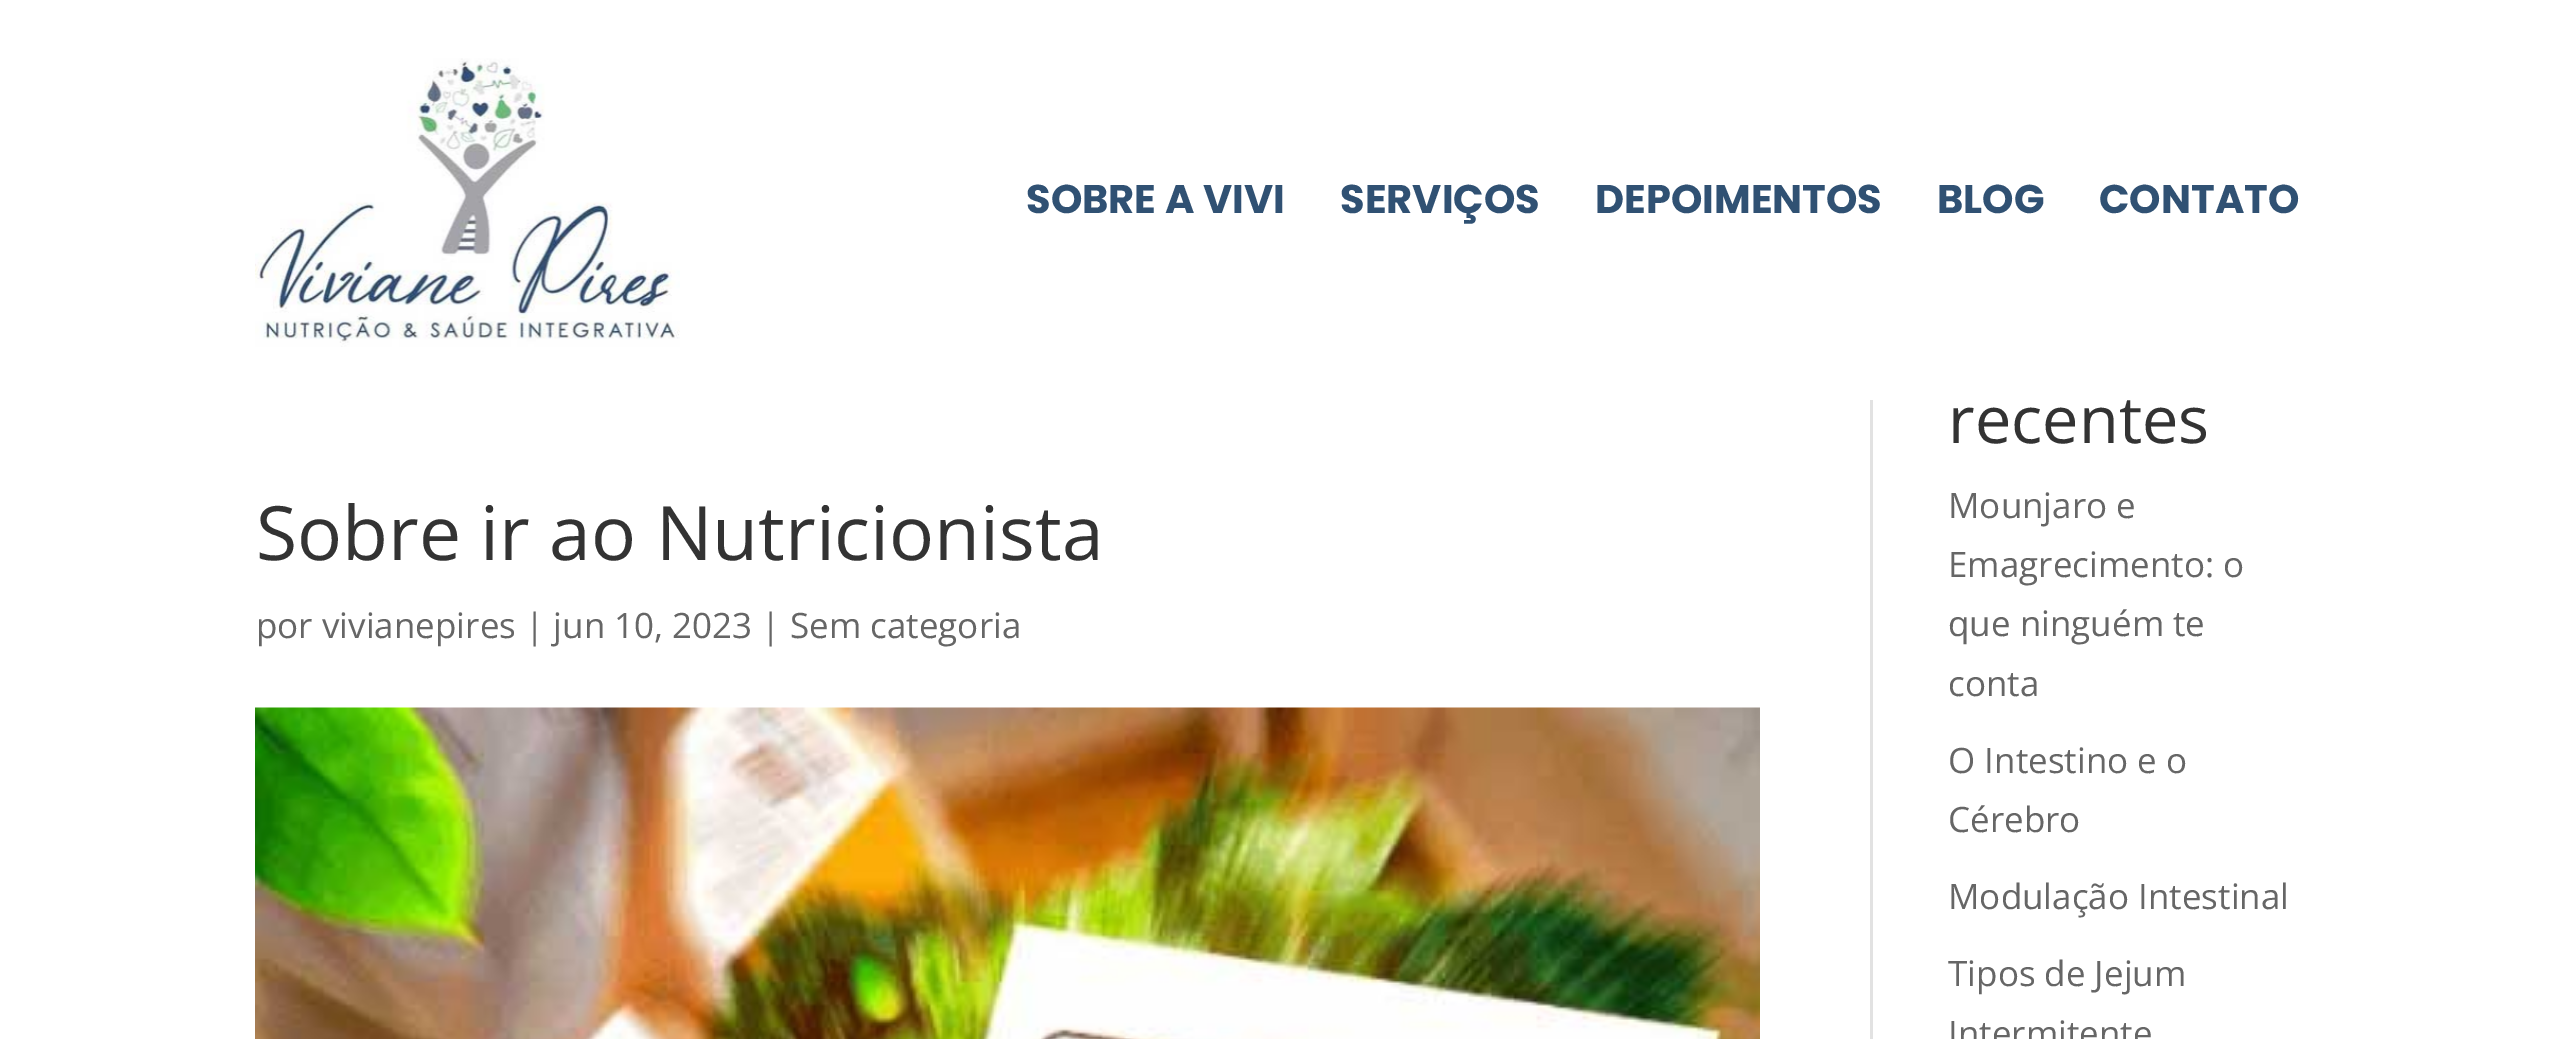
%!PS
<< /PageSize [2554 1039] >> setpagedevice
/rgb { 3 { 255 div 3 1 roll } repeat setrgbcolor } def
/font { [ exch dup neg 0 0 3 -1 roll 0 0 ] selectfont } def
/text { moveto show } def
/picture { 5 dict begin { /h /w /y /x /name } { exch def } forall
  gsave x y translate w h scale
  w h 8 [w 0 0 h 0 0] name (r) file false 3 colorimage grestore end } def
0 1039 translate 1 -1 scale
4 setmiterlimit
255 255 255 rgb
0 0 2554 1039 rectfill
(img_01.rgb) 255 58 425 289 picture
(img_02.rgb) 255 707 1505 332 picture
226 226 226 rgb
1870 400 3 639 rectfill
/Poppins-Bold 40 font
48 81 115 rgb
(SOBRE A VIVI) 1026 213 text
(SERVIÇOS) 1340 213 text
(DEPOIMENTOS) 1595 213 text
(BLOG) 1937 213 text
(CONTATO) 2099 213 text
/OpenSans-Regular 75 font
51 51 51 rgb
(Sobre ir ao Nutricionista) 256 560 text
/OpenSans-Regular 35 font
102 102 102 rgb
(por vivianepires | jun 10, 2023 | Sem categoria) 256 638 text
/OpenSans-Regular 65 font
51 51 51 rgb
(recentes) 1948 443 text
/OpenSans-Regular 35 font
102 102 102 rgb
(Mounjaro e) 1948 518 text
(Emagrecimento: o) 1948 577 text
(que ninguém te) 1948 636 text
(conta) 1948 696 text
(O Intestino e o) 1948 773 text
(Cérebro) 1948 832 text
(Modulação Intestinal) 1948 909 text
(Tipos de Jejum) 1948 986 text
(Intermitente) 1948 1046 text
showpage
